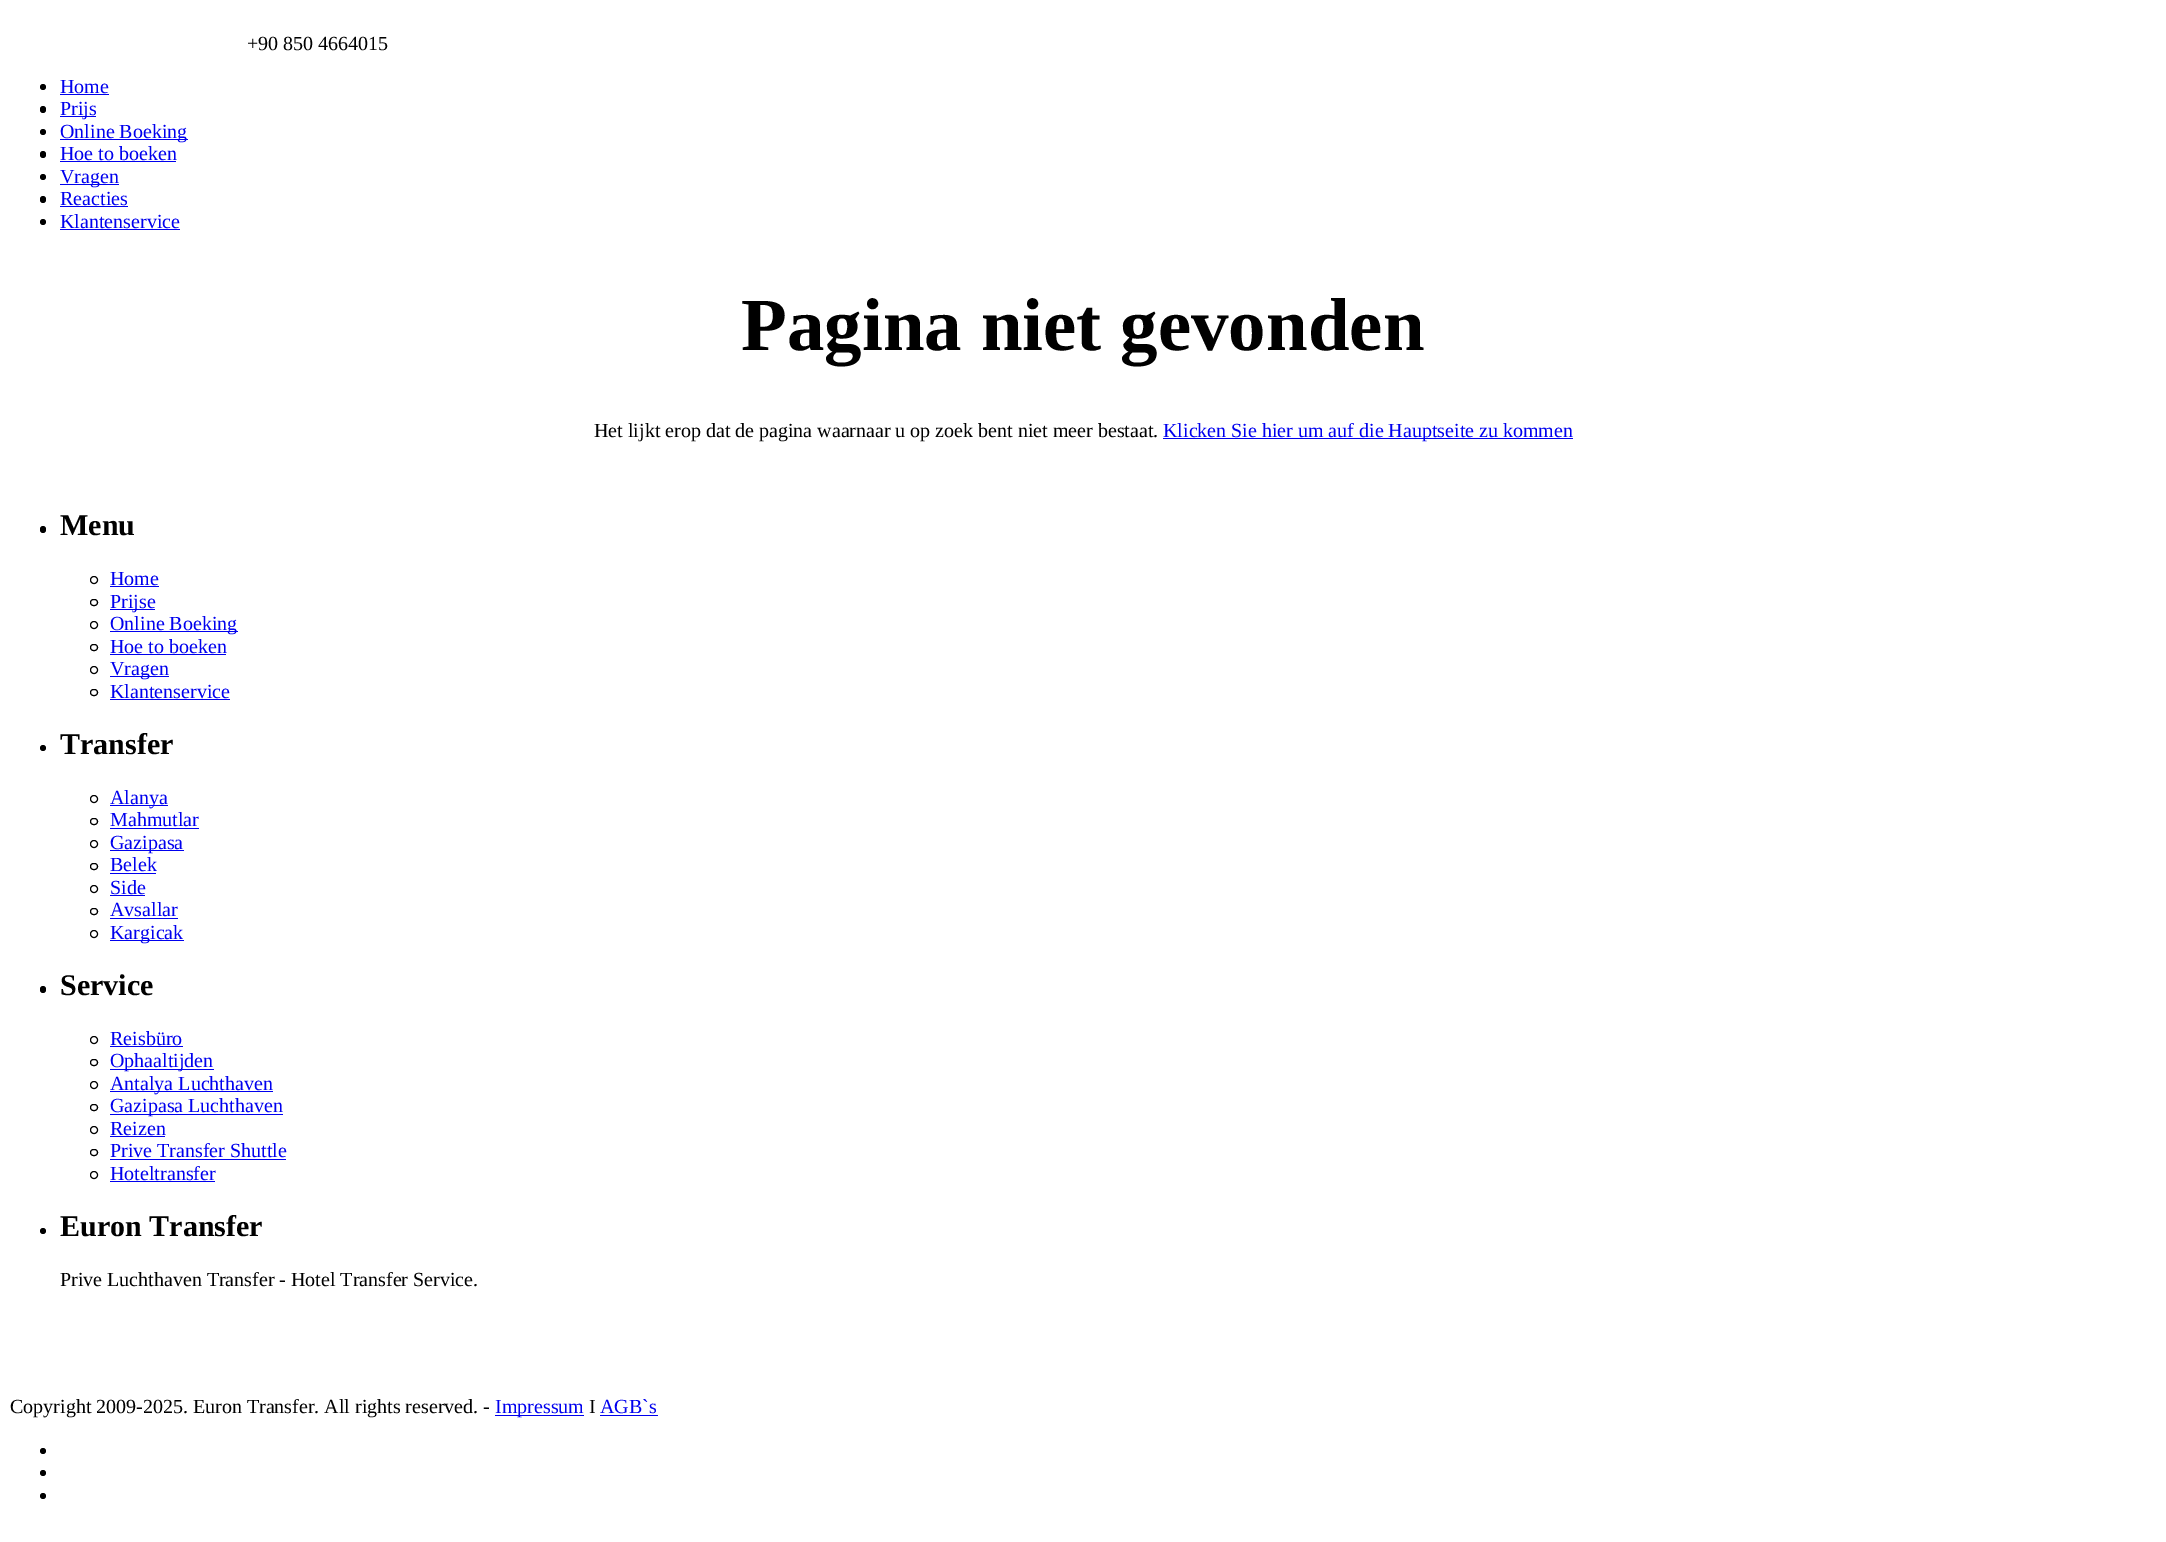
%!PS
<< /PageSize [2166 1542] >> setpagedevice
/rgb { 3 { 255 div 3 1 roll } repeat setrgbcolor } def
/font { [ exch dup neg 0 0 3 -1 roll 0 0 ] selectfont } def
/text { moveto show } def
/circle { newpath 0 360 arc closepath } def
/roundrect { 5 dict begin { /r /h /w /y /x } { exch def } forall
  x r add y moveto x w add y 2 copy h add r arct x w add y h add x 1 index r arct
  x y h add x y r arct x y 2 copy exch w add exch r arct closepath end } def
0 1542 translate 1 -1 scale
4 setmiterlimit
255 255 255 rgb
0 0 2166 1542 rectfill
0 0 0 rgb
43 87 3 circle fill
0 0 238 rgb
60 94 49 1 rectfill
0 0 0 rgb
40 106 6 7 3 roundrect fill
0 0 238 rgb
60 116 36 1 rectfill
0 0 0 rgb
43 132 3 circle fill
0 0 238 rgb
60 139 128 1 rectfill
0 0 0 rgb
40 151 6 7 3 roundrect fill
0 0 238 rgb
60 161 116 1 rectfill
0 0 0 rgb
43 177 3 circle fill
0 0 238 rgb
60 184 59 1 rectfill
0 0 0 rgb
40 196 6 7 3 roundrect fill
0 0 238 rgb
60 206 68 1 rectfill
0 0 0 rgb
43 222 3 circle fill
0 0 238 rgb
60 229 120 1 rectfill
1163 438 410 1 rectfill
0 0 0 rgb
40 526 6 7 3 roundrect fill
94 580 3.5 circle stroke
0 0 238 rgb
110 586 49 1 rectfill
0 0 0 rgb
90.5 599.5 7 6 3 roundrect stroke
0 0 238 rgb
110 609 45 1 rectfill
0 0 0 rgb
94 625 3.5 circle stroke
0 0 238 rgb
110 631 128 1 rectfill
0 0 0 rgb
90.5 644.5 7 6 3 roundrect stroke
0 0 238 rgb
110 654 116 1 rectfill
0 0 0 rgb
94 670 3.5 circle stroke
0 0 238 rgb
110 676 59 1 rectfill
0 0 0 rgb
90.5 689.5 7 6 3 roundrect stroke
0 0 238 rgb
110 699 120 1 rectfill
0 0 0 rgb
43 748 3 circle fill
94 799 3.5 circle stroke
0 0 238 rgb
110 805 58 1 rectfill
0 0 0 rgb
90.5 818.5 7 6 3 roundrect stroke
0 0 238 rgb
110 828 89 1 rectfill
0 0 0 rgb
94 844 3.5 circle stroke
0 0 238 rgb
110 850 74 1 rectfill
0 0 0 rgb
90.5 863.5 7 6 3 roundrect stroke
0 0 238 rgb
110 873 46 1 rectfill
0 0 0 rgb
94 889 3.5 circle stroke
0 0 238 rgb
110 895 35 1 rectfill
0 0 0 rgb
90.5 908.5 7 6 3 roundrect stroke
0 0 238 rgb
110 918 68 1 rectfill
0 0 0 rgb
94 934 3.5 circle stroke
0 0 238 rgb
110 940 74 1 rectfill
0 0 0 rgb
40 986 6 7 3 roundrect fill
94 1040 3.5 circle stroke
0 0 238 rgb
110 1046 73 1 rectfill
0 0 0 rgb
90.5 1059.5 7 6 3 roundrect stroke
0 0 238 rgb
110 1069 104 1 rectfill
0 0 0 rgb
94 1085 3.5 circle stroke
0 0 238 rgb
110 1091 163 1 rectfill
0 0 0 rgb
90.5 1104.5 7 6 3 roundrect stroke
0 0 238 rgb
110 1114 173 1 rectfill
0 0 0 rgb
94 1130 3.5 circle stroke
0 0 238 rgb
110 1136 55 1 rectfill
0 0 0 rgb
90.5 1149.5 7 6 3 roundrect stroke
0 0 238 rgb
110 1159 176 1 rectfill
0 0 0 rgb
94 1175 3.5 circle stroke
0 0 238 rgb
110 1181 105 1 rectfill
0 0 0 rgb
43 1231 3 circle fill
0 0 238 rgb
495 1415 89 1 rectfill
600 1415 58 1 rectfill
0 0 0 rgb
43 1451 3 circle fill
43 1473 3 circle fill
43 1496 3 circle fill
/LiberationSerif-Regular 20 font
(+90 850 4664015) 247 50 text
0 0 238 rgb
(Home) 60 93 text
(Prijs) 60 115 text
(Online Boeking) 60 138 text
(Hoe to boeken) 60 160 text
(Vragen) 60 183 text
(Reacties) 60 205 text
(Klantenservice) 60 228 text
/LiberationSerif-Bold 75 font
0 0 0 rgb
(Pagina niet gevonden) 741 350 text
/LiberationSerif-Regular 20 font
(Het lijkt erop dat de pagina waarnaar u op zoek bent niet meer bestaat.) 594 437 text
0 0 238 rgb
(Klicken Sie hier um auf die Hauptseite zu kommen) 1163 437 text
/LiberationSerif-Bold 30 font
0 0 0 rgb
(Menu) 60 535 text
/LiberationSerif-Regular 20 font
0 0 238 rgb
(Home) 110 585 text
(Prijse) 110 608 text
(Online Boeking) 110 630 text
(Hoe to boeken) 110 653 text
(Vragen) 110 675 text
(Klantenservice) 110 698 text
/LiberationSerif-Bold 30 font
0 0 0 rgb
(Transfer) 60 754 text
/LiberationSerif-Regular 20 font
0 0 238 rgb
(Alanya) 110 804 text
(Mahmutlar) 110 826 text
(Gazipasa) 110 849 text
(Belek) 110 871 text
(Side) 110 894 text
(Avsallar) 110 916 text
(Kargicak) 110 939 text
/LiberationSerif-Bold 30 font
0 0 0 rgb
(Service) 60 995 text
/LiberationSerif-Regular 20 font
0 0 238 rgb
(Reisbüro) 110 1045 text
(Ophaaltijden) 110 1067 text
(Antalya Luchthaven) 110 1090 text
(Gazipasa Luchthaven) 110 1112 text
(Reizen) 110 1135 text
(Prive Transfer Shuttle) 110 1157 text
(Hoteltransfer) 110 1180 text
/LiberationSerif-Bold 30 font
0 0 0 rgb
(Euron Transfer) 60 1236 text
/LiberationSerif-Regular 20 font
(Prive Luchthaven Transfer - Hotel Transfer Service.) 60 1286 text
(Copyright 2009-2025. Euron Transfer. All rights reserved. -) 10 1413 text
0 0 238 rgb
(Impressum) 495 1413 text
0 0 0 rgb
(I) 589 1413 text
0 0 238 rgb
(AGB`s) 600 1413 text
showpage
